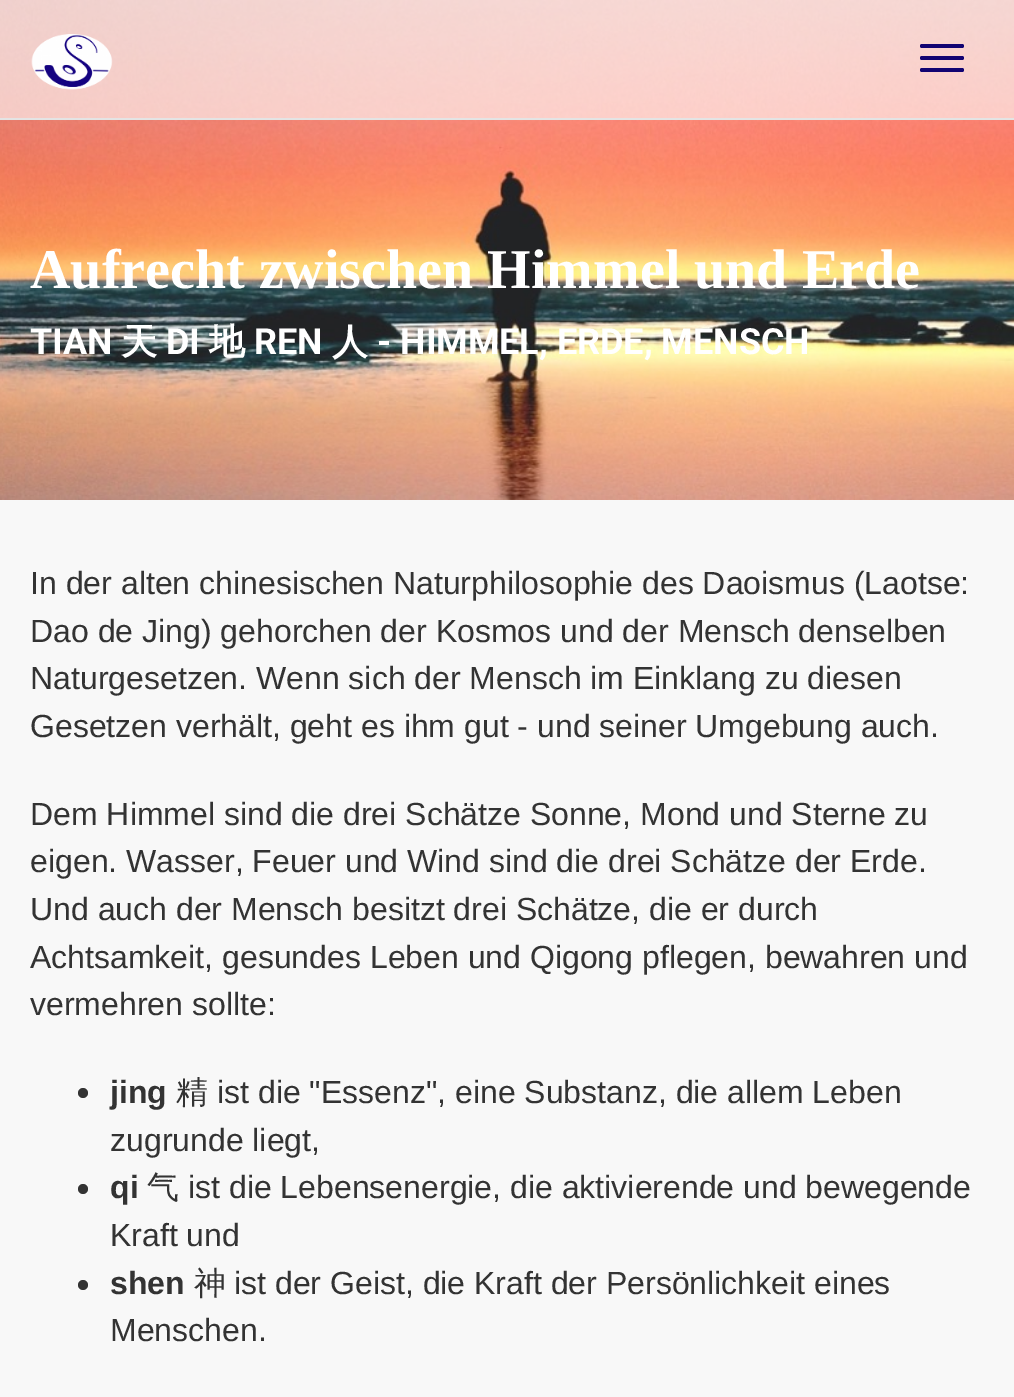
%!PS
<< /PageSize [1014 1397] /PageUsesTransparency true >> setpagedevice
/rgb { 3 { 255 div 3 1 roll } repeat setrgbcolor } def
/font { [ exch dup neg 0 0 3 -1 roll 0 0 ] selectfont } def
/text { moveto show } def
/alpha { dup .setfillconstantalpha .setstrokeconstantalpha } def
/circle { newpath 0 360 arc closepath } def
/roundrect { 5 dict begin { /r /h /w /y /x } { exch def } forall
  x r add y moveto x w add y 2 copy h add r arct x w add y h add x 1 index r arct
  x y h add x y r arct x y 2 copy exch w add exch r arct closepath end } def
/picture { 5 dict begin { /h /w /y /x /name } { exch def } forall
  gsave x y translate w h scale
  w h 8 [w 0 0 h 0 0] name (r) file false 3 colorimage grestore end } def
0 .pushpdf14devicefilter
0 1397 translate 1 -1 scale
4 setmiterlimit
248 248 248 rgb
0 0 1014 1397 rectfill
(img_02.rgb) 0 0 1014 500 picture
0.6 alpha
255 255 255 rgb
0 0 1014 118 rectfill
1 alpha
228 228 228 rgb
0 118 1014 2 rectfill
(img_01.rgb) 31 34 82 56 picture
17 3 114 rgb
920 44 44 4 2 roundrect fill
920 56 44 4 2 roundrect fill
920 68 44 4 2 roundrect fill
51 51 51 rgb
83 1093 5 circle fill
83 1189 5 circle fill
83 1285 5 circle fill
/LiberationSerif-Bold 56 font
255 255 255 rgb
(Aufrecht zwischen Himmel und Erde) 30 288 text
/Roboto-Bold 36 font
(TIAN) 30 354 text
/WenQuanYiZenHei-Bold 36 font
(天) 121 354 text
/Roboto-Bold 36 font
(DI) 166 354 text
/WenQuanYiZenHei-Bold 36 font
(地) 209 354 text
/Roboto-Bold 36 font
(REN) 254 354 text
/WenQuanYiZenHei-Bold 36 font
(人) 332 354 text
/Roboto-Bold 36 font
(- HIMMEL, ERDE, MENSCH) 377 354 text
/LiberationSans-Regular 32 font
51 51 51 rgb
(In der alten chinesischen Naturphilosophie des Daoismus \(Laotse:) 30 594 text
(Dao de Jing\) gehorchen der Kosmos und der Mensch denselben) 30 642 text
(Naturgesetzen. Wenn sich der Mensch im Einklang zu diesen) 30 689 text
(Gesetzen verhält, geht es ihm gut - und seiner Umgebung auch.) 30 737 text
(Dem Himmel sind die drei Schätze Sonne, Mond und Sterne zu) 30 825 text
(eigen. Wasser, Feuer und Wind sind die drei Schätze der Erde.) 30 872 text
(Und auch der Mensch besitzt drei Schätze, die er durch) 30 920 text
(Achtsamkeit, gesundes Leben und Qigong pflegen, bewahren und) 30 968 text
(vermehren sollte:) 30 1015 text
/LiberationSans-Bold 32 font
(jing) 110 1103 text
/WenQuanYiZenHei-Medium 32 font
(精) 176 1103 text
/LiberationSans-Regular 32 font
(ist die "Essenz", eine Substanz, die allem Leben) 217 1103 text
(zugrunde liegt,) 110 1151 text
/LiberationSans-Bold 32 font
(qi) 110 1198 text
/WenQuanYiZenHei-Medium 32 font
(气) 147 1198 text
/LiberationSans-Regular 32 font
(ist die Lebensenergie, die aktivierende und bewegende) 188 1198 text
(Kraft und) 110 1246 text
/LiberationSans-Bold 32 font
(shen) 110 1294 text
/WenQuanYiZenHei-Medium 32 font
(神) 194 1294 text
/LiberationSans-Regular 32 font
(ist der Geist, die Kraft der Persönlichkeit eines) 234 1294 text
(Menschen.) 110 1341 text
.poppdf14devicefilter showpage
